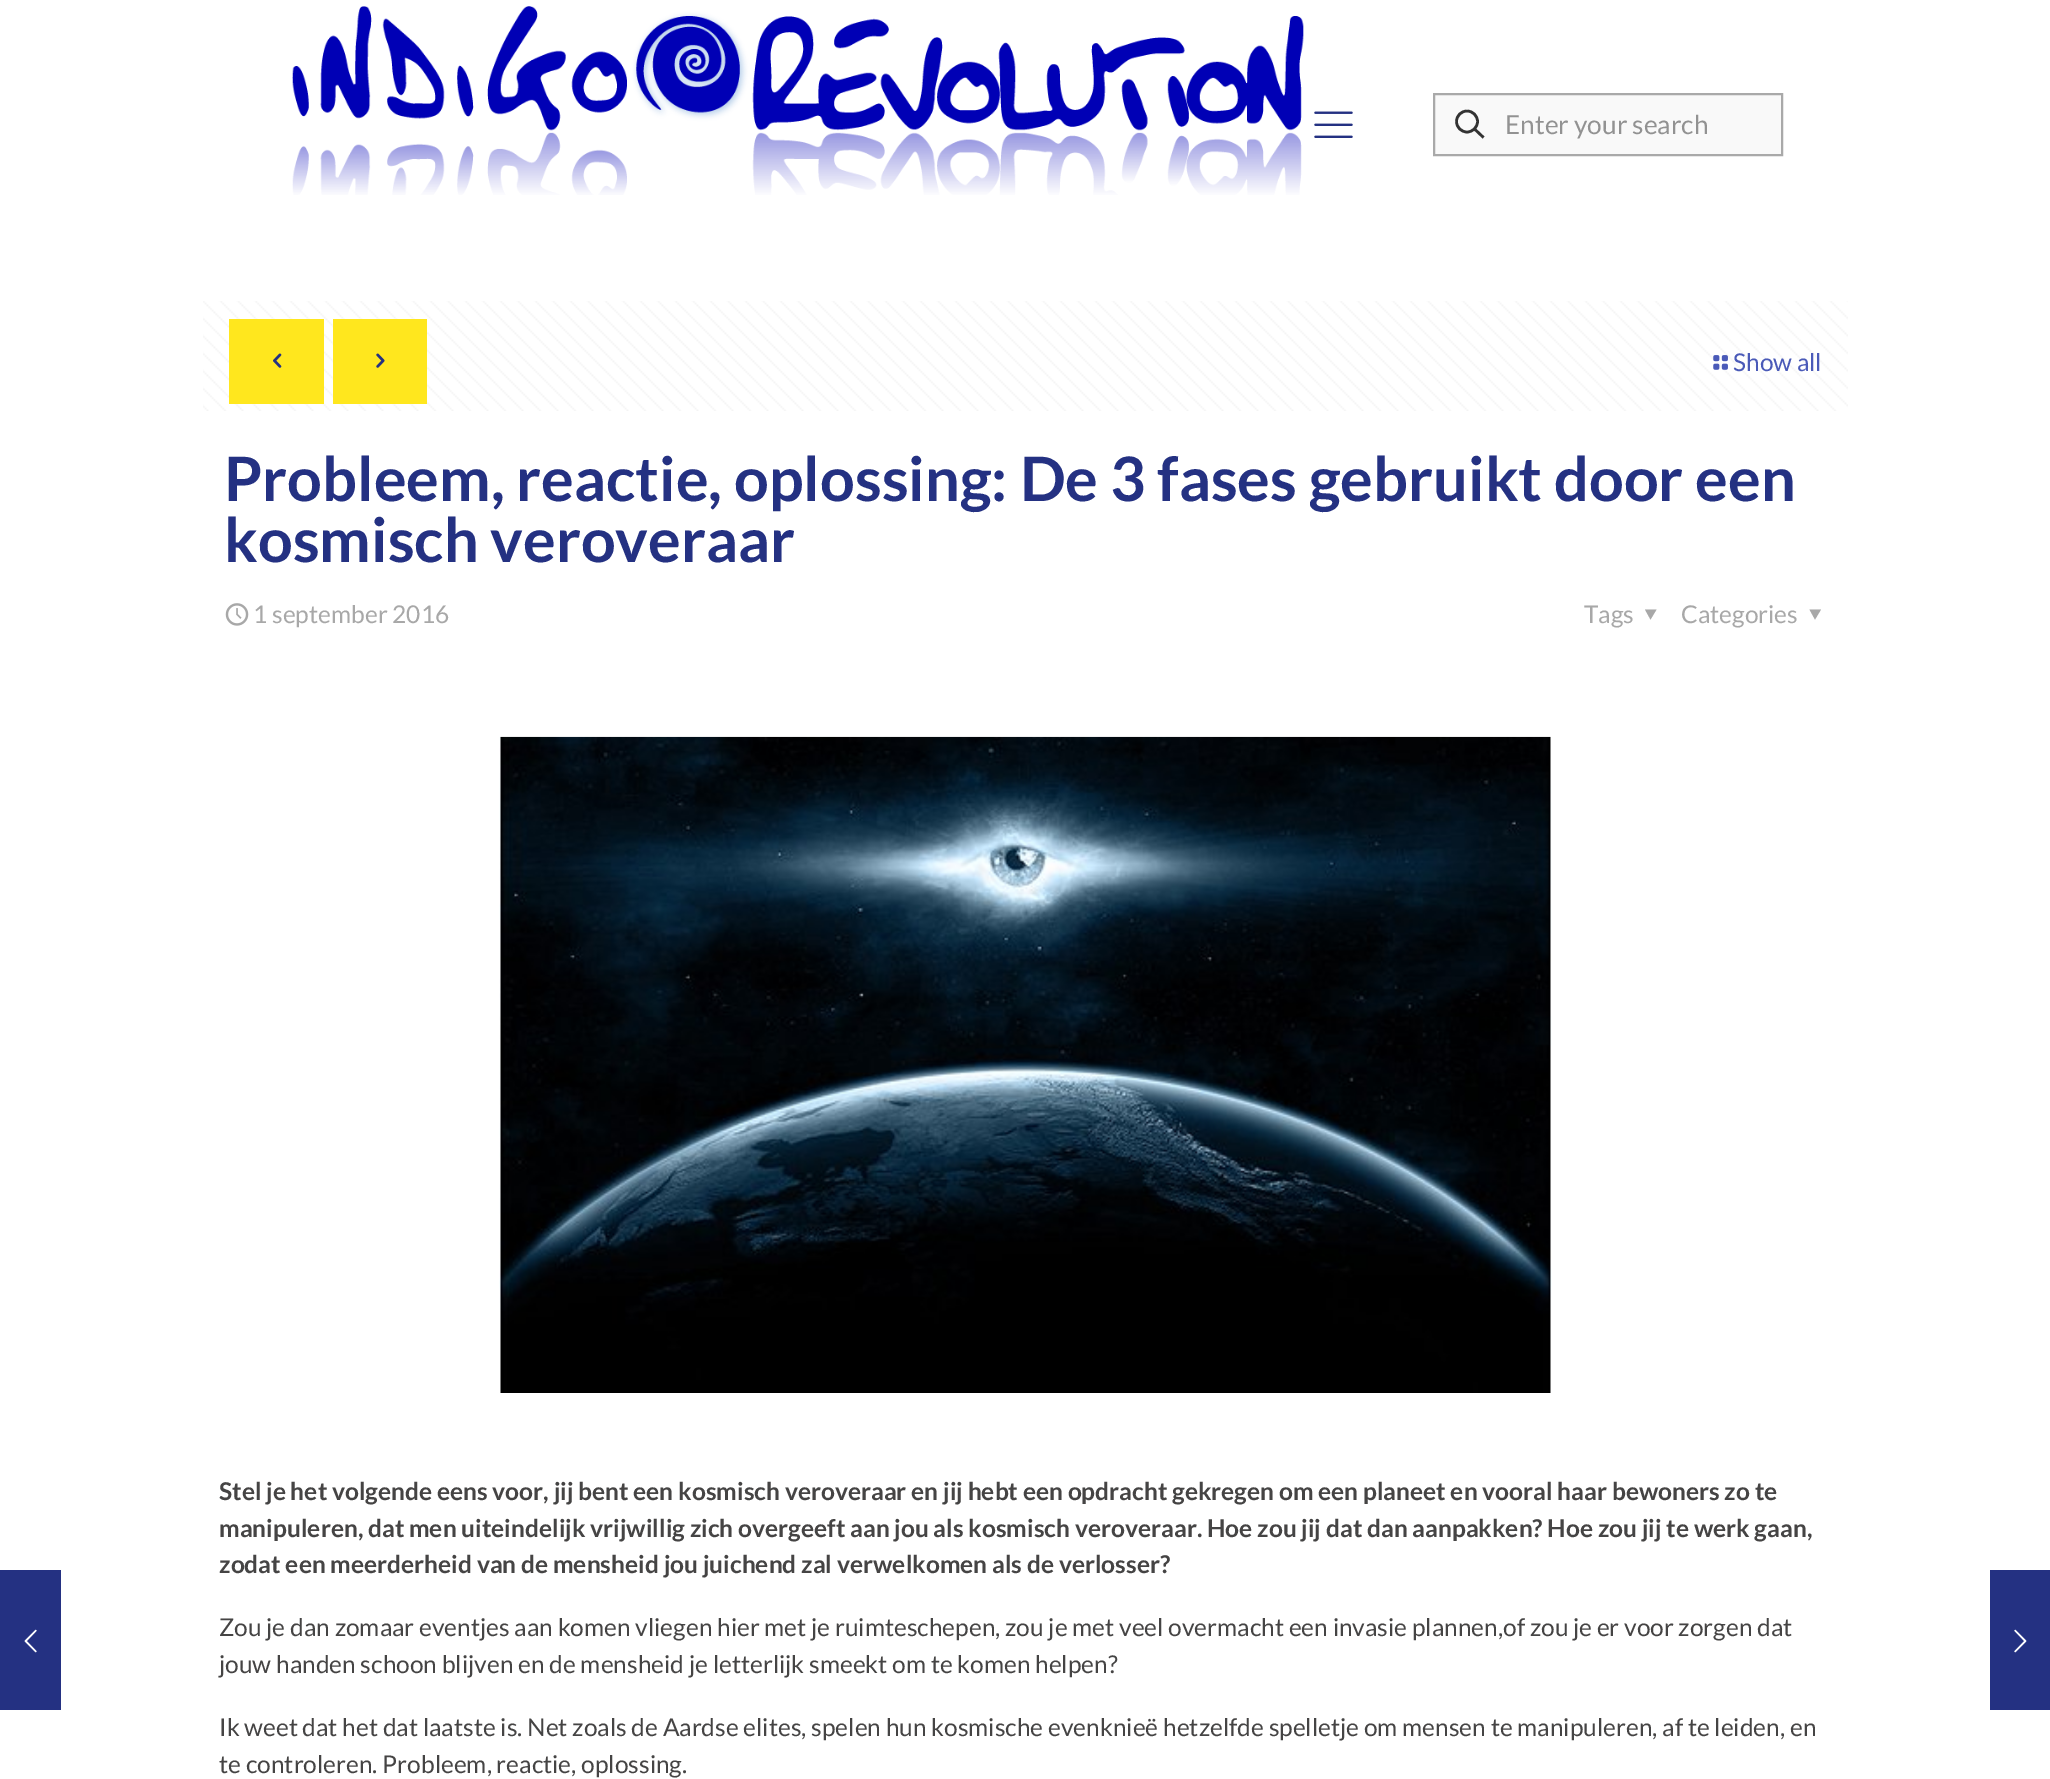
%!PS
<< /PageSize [2050 1779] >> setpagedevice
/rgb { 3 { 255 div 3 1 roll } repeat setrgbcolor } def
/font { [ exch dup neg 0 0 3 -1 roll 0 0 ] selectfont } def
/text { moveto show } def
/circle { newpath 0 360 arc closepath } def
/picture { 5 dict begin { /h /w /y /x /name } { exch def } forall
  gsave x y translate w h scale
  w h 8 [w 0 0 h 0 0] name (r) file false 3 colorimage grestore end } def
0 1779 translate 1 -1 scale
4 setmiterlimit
255 255 255 rgb
0 0 2050 1779 rectfill
36 49 130 rgb
0 1570 61 140 rectfill
(img_01.rgb) 24 1629 13 24 picture
(img_02.rgb) 292 6 1012 189 picture
(img_03.rgb) 1314 111 39 27 picture
249 249 249 rgb
1434 94 moveto 348 0 rlineto 0 61 rlineto -348 0 rlineto closepath gsave fill grestore
169 169 169 rgb
2 setlinewidth
stroke
51 51 51 rgb
2.6 setlinewidth
1467 121.5 10.5 circle stroke
1474.5 129 moveto 9 8.5 rlineto stroke
(img_04.rgb) 203 301 1645 110 picture
255 231 30 rgb
229 319 95 85 rectfill
(img_05.rgb) 273 353 9 15 picture
333 319 94 85 rectfill
(img_06.rgb) 376 353 9 15 picture
(img_07.rgb) 1713 355 15 15 picture
(img_08.rgb) 225 603 24 23 picture
168 168 168 rgb
1656.5 609.5 moveto -6 10 rlineto -5.5 -10 rlineto closepath fill
1821 609.5 moveto -6 10 rlineto -5.5 -10 rlineto closepath fill
(img_09.rgb) 499 736 1053 657 picture
36 49 130 rgb
1990 1570 60 140 rectfill
(img_10.rgb) 2014 1629 13 24 picture
/Lato-Regular 26.25 font
146 146 146 rgb
(Enter your search) 1505 134 text
/Lato-Regular 24.5 font
74 90 184 rgb
(Show all) 1733 371 text
/Lato-Bold 61.25 font
36 49 130 rgb
(Probleem, reactie, oplossing: De 3 fases gebruikt door een) 224 501 text
(kosmisch veroveraar) 224 562 text
/Lato-Regular 24.5 font
168 168 168 rgb
(1 september 2016) 253 623 text
(Tags) 1584 623 text
(Categories) 1681 623 text
/Lato-Bold 24.5 font
69 68 68 rgb
(Stel je het volgende eens voor, jij bent een kosmisch veroveraar en jij hebt een opdracht gekregen om een planeet en vooral haar bewoners zo te) 219 1500 text
(manipuleren, dat men uiteindelijk vrijwillig zich overgeeft aan jou als kosmisch veroveraar. Hoe zou jij dat dan aanpakken? Hoe zou jij te werk gaan,) 219 1537 text
(zodat een meerderheid van de mensheid jou juichend zal verwelkomen als de verlosser?) 219 1573 text
/Lato-Regular 24.5 font
(Zou je dan zomaar eventjes aan komen vliegen hier met je ruimteschepen, zou je met veel overmacht een invasie plannen,of zou je er voor zorgen dat) 219 1636 text
(jouw handen schoon blijven en de mensheid je letterlijk smeekt om te komen helpen?) 219 1673 text
(Ik weet dat het dat laatste is. Net zoals de Aardse elites, spelen hun kosmische evenknieë hetzelfde spelletje om mensen te manipuleren, af te leiden, en) 219 1736 text
(te controleren. Probleem, reactie, oplossing.) 219 1773 text
showpage
